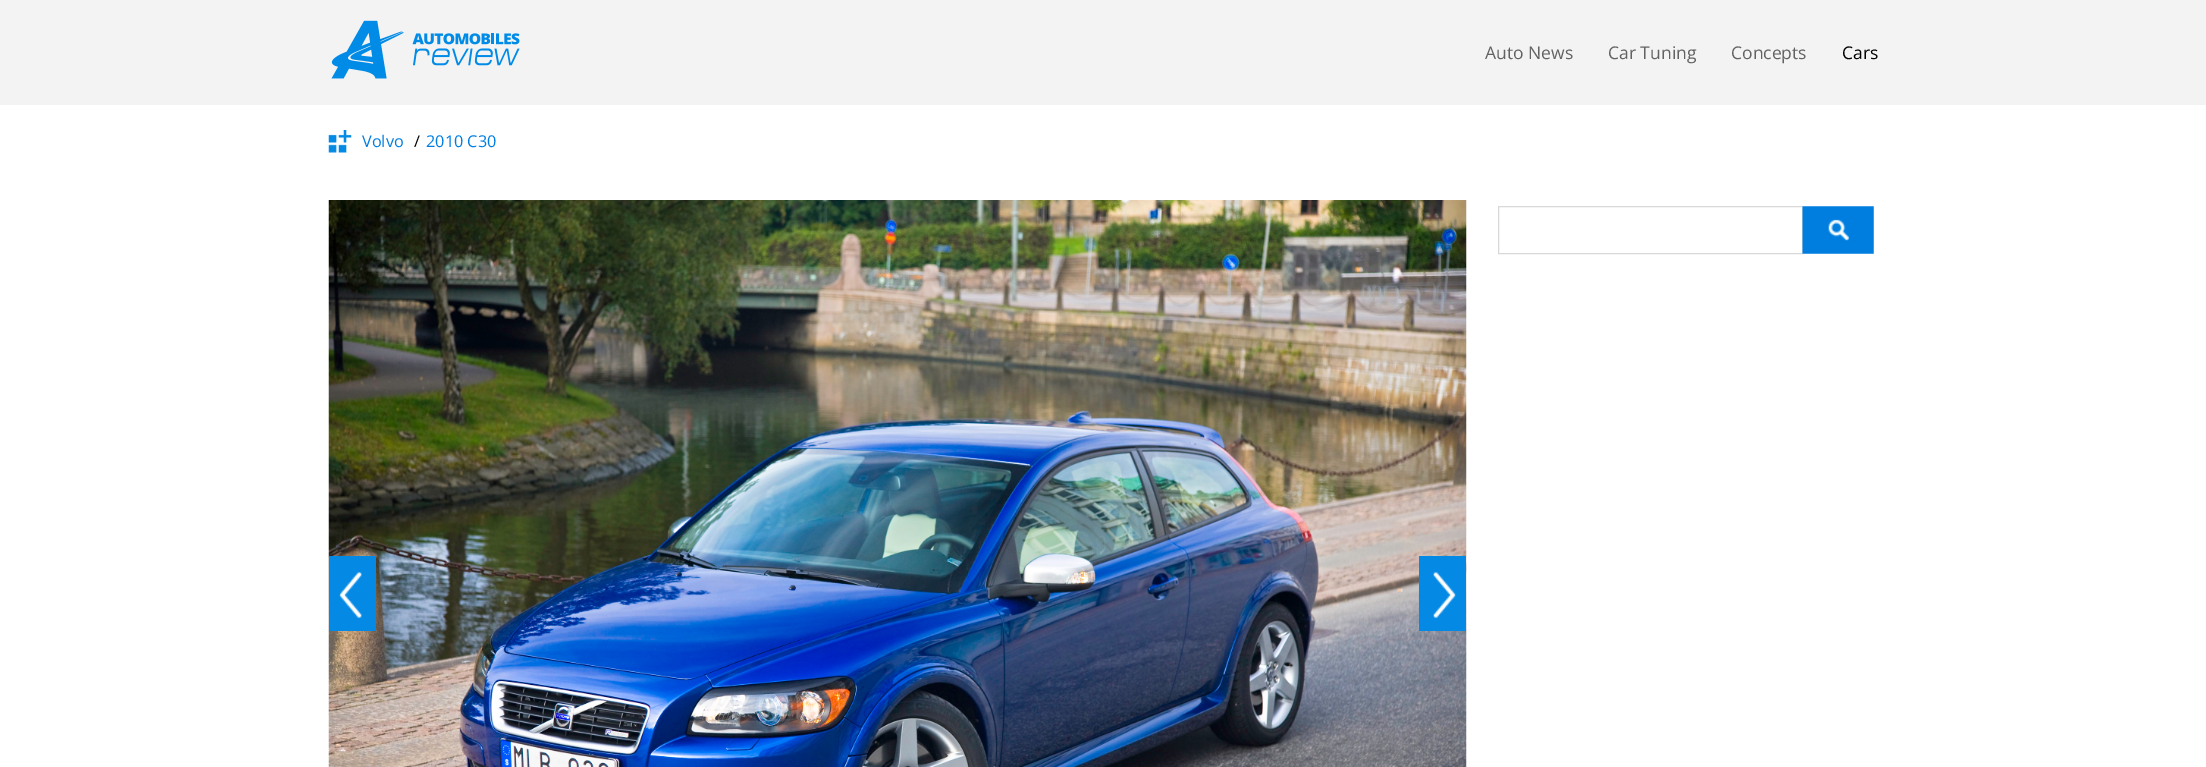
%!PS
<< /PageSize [2206 767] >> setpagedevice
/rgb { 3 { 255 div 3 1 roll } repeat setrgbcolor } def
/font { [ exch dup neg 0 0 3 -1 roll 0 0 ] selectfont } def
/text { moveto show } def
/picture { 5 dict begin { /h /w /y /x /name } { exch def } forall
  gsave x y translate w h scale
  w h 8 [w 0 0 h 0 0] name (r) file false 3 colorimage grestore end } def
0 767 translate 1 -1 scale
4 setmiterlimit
255 255 255 rgb
0 0 2206 767 rectfill
243 243 243 rgb
0 0 2206 105 rectfill
(img_01.rgb) 331 20 189 59 picture
(img_02.rgb) 328 130 24 23 picture
(img_03.rgb) 328 200 1139 567 picture
4 137 228 rgb
329 556 47 75 rectfill
(img_04.rgb) 339 572 23 46 picture
1419 556 47 75 rectfill
(img_05.rgb) 1433 572 23 46 picture
217 217 217 rgb
1498.5 206.5 304 47 rectstroke
(img_06.rgb) 1802 206 72 48 picture
/OpenSans-Regular 17.5 font
98 98 98 rgb
(Auto News) 1485 59 text
(Car Tuning) 1608 59 text
(Concepts) 1731 59 text
0 0 0 rgb
(Cars) 1842 59 text
/OpenSans-Regular 16.25 font
0 126 224 rgb
(Volvo) 362 147 text
0 0 0 rgb
(/) 414 147 text
0 126 224 rgb
(2010 C30) 426 147 text
showpage
